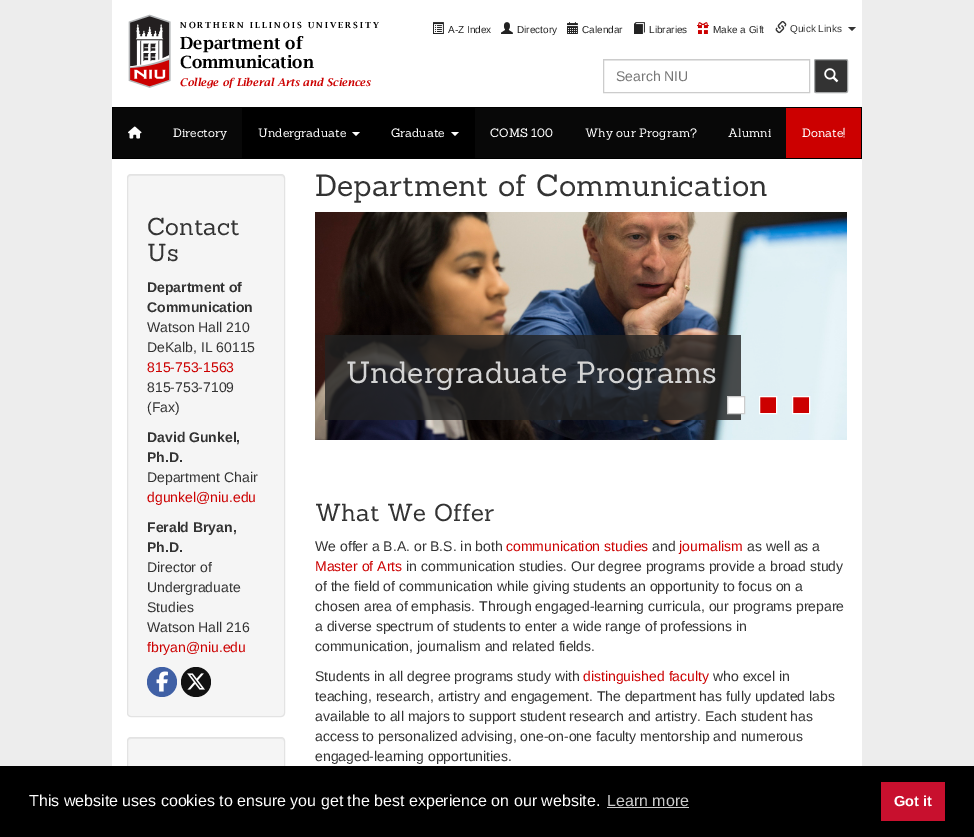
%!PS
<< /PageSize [974 837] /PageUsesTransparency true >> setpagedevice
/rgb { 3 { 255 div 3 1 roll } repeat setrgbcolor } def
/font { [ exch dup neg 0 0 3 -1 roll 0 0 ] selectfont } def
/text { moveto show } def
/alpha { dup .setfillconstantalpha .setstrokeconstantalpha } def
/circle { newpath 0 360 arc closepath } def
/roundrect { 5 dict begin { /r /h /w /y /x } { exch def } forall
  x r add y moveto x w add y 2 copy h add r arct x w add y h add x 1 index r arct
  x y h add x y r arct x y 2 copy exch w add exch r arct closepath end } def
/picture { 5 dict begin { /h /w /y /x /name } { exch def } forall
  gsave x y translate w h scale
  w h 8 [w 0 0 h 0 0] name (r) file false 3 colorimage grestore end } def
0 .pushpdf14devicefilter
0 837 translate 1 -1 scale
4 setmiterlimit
237 237 237 rgb
0 0 974 837 rectfill
255 255 255 rgb
112 0 750 107 rectfill
(img_01.rgb) 128 14 43 74 picture
(img_02.rgb) 433 22 11 12 picture
(img_03.rgb) 501 22 12 12 picture
(img_04.rgb) 567 22 11 12 picture
(img_05.rgb) 634 22 11 12 picture
(img_06.rgb) 697 22 12 12 picture
(img_07.rgb) 775 21 12 13 picture
51 51 51 rgb
848 27 moveto 8 0 rlineto -4 4 rlineto closepath fill
236 236 236 rgb
604 60 205 1 rectfill
204 204 204 rgb
603.5 59.5 206 33 rectstroke
51 51 51 rgb
814.5 59.5 33 33 1.5 roundrect gsave fill grestore
165 167 168 rgb
stroke
(img_08.rgb) 824 68 15 15 picture
0 0 0 rgb
112 107 750 52 rectfill
8 8 8 rgb
113 108 129 50 rectfill
(img_09.rgb) 128 126 14 13 picture
204 0 0 rgb
786 108 75 50 rectfill
255 255 255 rgb
352 132 moveto 8 0 rlineto -4 4 rlineto closepath fill
451 132 moveto 8 0 rlineto -4 4 rlineto closepath fill
8 8 8 rgb
475 108 311 50 rectfill
255 255 255 rgb
112 159 750 607 rectfill
245 245 245 rgb
127 174 158 543 4 roundrect fill
233 233 233 rgb
131 176 moveto 150 0 rlineto 2 0 3 1 3 3 rcurveto 0 -2 -1 -4 -3 -4 rcurveto -151 0 rlineto -2 0 -2 2 -2 4 rcurveto 0 -2 1 -3 3 -3 rcurveto closepath fill
227 227 227 rgb
127.5 174.5 157 542 3.5 roundrect stroke
64 96 165 rgb
162 682 15 circle fill
(img_10.rgb) 156 671 12 21 picture
17 17 17 rgb
196 682 15 circle fill
(img_11.rgb) 187 673 18 17 picture
245 245 245 rgb
127 737 158 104 4 roundrect fill
233 233 233 rgb
131 739 moveto 150 0 rlineto 2 0 3 1 3 3 rcurveto 0 -2 -1 -4 -3 -4 rcurveto -151 0 rlineto -2 0 -2 2 -2 4 rcurveto 0 -2 1 -3 3 -3 rcurveto closepath fill
227 227 227 rgb
127.5 737.5 157 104 3.5 roundrect stroke
(img_12.rgb) 315 212 532 228 picture
0.8 alpha
34 34 34 rgb
325 335 416 85 rectfill
1 alpha
255 255 255 rgb
727.5 396.5 moveto 17 0 rlineto 0 17 rlineto -17 0 rlineto closepath gsave fill grestore
204 204 204 rgb
stroke
204 0 0 rgb
759.5 396.5 moveto 17 0 rlineto 0 17 rlineto -17 0 rlineto closepath gsave fill grestore
255 255 255 rgb
stroke
204 0 0 rgb
792.5 396.5 moveto 17 0 rlineto 0 17 rlineto -17 0 rlineto closepath gsave fill grestore
255 255 255 rgb
stroke
0 0 0 rgb
0 766 974 71 rectfill
204 204 204 rgb
607 807 82 1 rectfill
200 16 46 rgb
881 782 64 39 rectfill
/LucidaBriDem-Regular 8.4 font
0 0 0 rgb
180 28 moveto 2 0 (NORTHERN ILLINOIS UNIVERSITY) ashow
/LucidaBriDem-Regular 16.75 font
(Department of) 180 49 text
(Communication) 180 68 text
/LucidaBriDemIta-Regular 10.6 font
204 0 0 rgb
(College of Liberal Arts and Sciences) 180 86 text
/LiberationSans-Regular 10 font
34 34 34 rgb
(A-Z Index) 448 33 text
(Directory) 517 33 text
(Calendar) 582 33 text
(Libraries) 649 33 text
(Make a Gift) 713 33 text
51 51 51 rgb
(Quick Links) 790 32 text
/LiberationSans-Regular 14 font
119 119 119 rgb
(Search NIU) 616 81 text
/Sanchez-Regular 12 font
255 255 255 rgb
(Donate!) 802 137 text
(Directory) 173 137 text
(Undergraduate) 258 137 text
(Graduate) 391 137 text
(COMS 100) 490 137 text
(Why our Program?) 585 137 text
(Alumni) 728 137 text
/Sanchez-Regular 24 font
51 51 51 rgb
(Contact) 147 235 text
(Us) 147 261 text
/LiberationSans-Bold 14 font
(Department of) 147 292 text
(Communication) 147 312 text
/LiberationSans-Regular 14 font
(Watson Hall 210) 147 332 text
(DeKalb, IL 60115) 147 352 text
204 0 0 rgb
(815-753-1563) 147 372 text
51 51 51 rgb
(815-753-7109) 147 392 text
(\(Fax\)) 147 412 text
/LiberationSans-Bold 14 font
(David Gunkel,) 147 442 text
(Ph.D.) 147 462 text
/LiberationSans-Regular 14 font
(Department Chair) 147 482 text
204 0 0 rgb
(dgunkel@niu.edu) 147 502 text
/LiberationSans-Bold 14 font
51 51 51 rgb
(Ferald Bryan,) 147 532 text
(Ph.D.) 147 552 text
/LiberationSans-Regular 14 font
(Director of) 147 572 text
(Undergraduate) 147 592 text
(Studies) 147 612 text
(Watson Hall 216) 147 632 text
204 0 0 rgb
(fbryan@niu.edu) 147 652 text
/Sanchez-Regular 30 font
51 51 51 rgb
(Department of Communication) 315 196 text
212 212 212 rgb
(Undergraduate Programs) 346 383 text
/Sanchez-Regular 24 font
51 51 51 rgb
(What We Offer) 315 521 text
/LiberationSans-Regular 14 font
(We offer a B.A. or B.S. in both) 315 551 text
204 0 0 rgb
(communication studies) 506 551 text
51 51 51 rgb
(and) 652 551 text
204 0 0 rgb
(journalism) 679 551 text
51 51 51 rgb
(as well as a) 747 551 text
204 0 0 rgb
(Master of Arts) 315 571 text
51 51 51 rgb
(in communication studies. Our degree programs provide a broad study) 406 571 text
(of the field of communication while giving students an opportunity to focus on a) 315 591 text
(chosen area of emphasis. Through engaged-learning curricula, our programs prepare) 315 611 text
(a diverse spectrum of students to enter a wide range of professions in) 315 631 text
(communication, journalism and related fields.) 315 651 text
(Students in all degree programs study with) 315 681 text
204 0 0 rgb
(distinguished faculty) 583 681 text
51 51 51 rgb
(who excel in) 713 681 text
(teaching, research, artistry and engagement. The department has fully updated labs) 315 701 text
(available to all majors to support student research and artistry. Each student has) 315 721 text
(access to personalized advising, one-on-one faculty mentorship and numerous) 315 741 text
(engaged-learning opportunities.) 315 761 text
/LiberationSans-Regular 16 font
255 255 255 rgb
(This website uses cookies to ensure you get the best experience on our website.) 29 806 text
204 204 204 rgb
(Learn more) 607 806 text
/LiberationSans-Bold 14.5 font
255 255 255 rgb
(Got it) 894 806 text
.poppdf14devicefilter showpage
